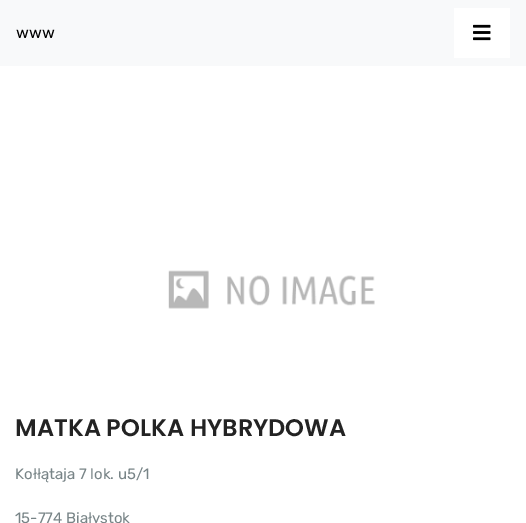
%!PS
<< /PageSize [526 523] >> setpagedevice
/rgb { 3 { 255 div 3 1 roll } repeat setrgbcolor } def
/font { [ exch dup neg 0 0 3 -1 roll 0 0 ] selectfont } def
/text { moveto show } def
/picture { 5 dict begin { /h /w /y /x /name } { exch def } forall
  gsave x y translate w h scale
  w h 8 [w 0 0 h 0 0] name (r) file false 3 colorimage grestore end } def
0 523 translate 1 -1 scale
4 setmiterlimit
255 255 255 rgb
0 0 526 523 rectfill
248 249 250 rgb
0 0 526 66 rectfill
255 255 255 rgb
454 8 56 50 rectfill
(img_01.rgb) 473 24 18 17 picture
(img_02.rgb) 168 270 207 39 picture
/Rubik-Regular 16 font
0 0 0 rgb
(www) 16 38 text
/Poppins-SemiBold 24 font
35 35 35 rgb
(MATKA POLKA HYBRYDOWA) 15 436 text
/Rubik-Regular 15 font
120 132 135 rgb
(Kołłątaja 7 lok. u5/1) 15 479 text
(15-774 Białystok) 15 523 text
showpage
